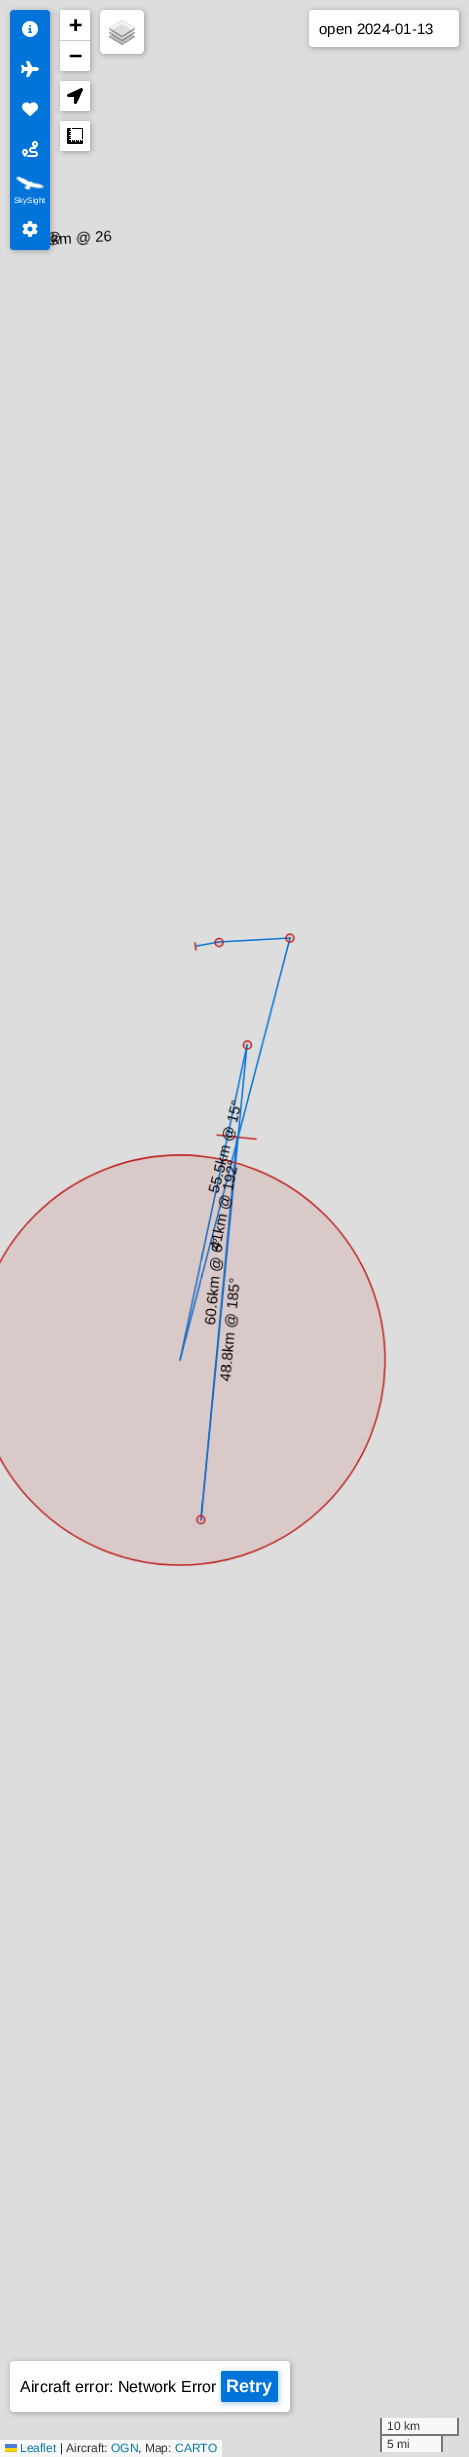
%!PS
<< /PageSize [469 2457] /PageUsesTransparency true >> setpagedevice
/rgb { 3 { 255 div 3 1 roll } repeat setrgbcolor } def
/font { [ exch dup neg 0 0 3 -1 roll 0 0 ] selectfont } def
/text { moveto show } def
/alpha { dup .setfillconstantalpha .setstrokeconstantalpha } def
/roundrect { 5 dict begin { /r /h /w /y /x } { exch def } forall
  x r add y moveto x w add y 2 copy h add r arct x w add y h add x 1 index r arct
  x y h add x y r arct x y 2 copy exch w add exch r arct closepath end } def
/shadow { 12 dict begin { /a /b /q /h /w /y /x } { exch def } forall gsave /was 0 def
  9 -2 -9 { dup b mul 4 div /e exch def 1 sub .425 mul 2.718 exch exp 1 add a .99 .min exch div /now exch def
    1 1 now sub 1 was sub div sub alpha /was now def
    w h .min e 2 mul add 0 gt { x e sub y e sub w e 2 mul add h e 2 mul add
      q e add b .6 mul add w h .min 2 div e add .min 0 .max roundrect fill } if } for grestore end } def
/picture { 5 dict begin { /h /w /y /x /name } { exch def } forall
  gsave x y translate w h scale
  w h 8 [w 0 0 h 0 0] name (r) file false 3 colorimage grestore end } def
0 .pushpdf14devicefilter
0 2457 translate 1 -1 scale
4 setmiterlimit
221 221 221 rgb
0 0 469 2457 rectfill
248 248 248 rgb
382 2436 59 16 rectfill
0 0 0 rgb
61 11 30 61 4 3 0.3 shadow
255 255 255 rgb
62 10 moveto 26 0 rlineto 1 0 2 1 2 2 rcurveto 0 29 rlineto -30 0 rlineto 0 -29 rlineto 0 -1 1 -2 2 -2 rcurveto closepath fill
204 204 204 rgb
60 40 30 1 rectfill
255 255 255 rgb
60 41 moveto 30 0 rlineto 0 28 rlineto 0 1 -1 2 -2 2 rcurveto -26 0 rlineto -1 0 -2 -1 -2 -2 rcurveto closepath fill
0 0 0 rgb
101 11 44 44 5 3 0.3 shadow
255 255 255 rgb
100 10 44 44 5 roundrect fill
(img_01.rgb) 109 20 26 25 picture
0 0 0 rgb
61 82 30 30 4 3 0.3 shadow
255 255 255 rgb
60 81 30 30 2 roundrect fill
(img_02.rgb) 67 88 16 16 picture
0 0 0 rgb
61 122 30 30 4 3 0.3 shadow
255 255 255 rgb
60 121 30 30 2 roundrect fill
(img_03.rgb) 67 128 16 16 picture
248 248 248 rgb
0 2440 222 17 rectfill
76 123 225 rgb
5 2444 12 4 rectfill
255 213 0 rgb
5 2448 12 3 rectfill
224 188 0 rgb
5 2451 12 1 rectfill
248 248 248 rgb
382 2418 75 16 rectfill
119 119 119 rgb
457 2418 2 18 rectfill
443 2434 16 2 rectfill
380 2418 2 18 rectfill
380 2434 63 2 rectfill
441 2434 2 18 rectfill
380 2434 2 18 rectfill
(img_04.rgb) 0 230 387 1337 picture
0 0 0 rgb
310 11 150 37 4 3 0.3 shadow
255 255 255 rgb
309 10 150 37 4 roundrect fill
0 0 0 rgb
11 11 40 240 4 3 0.3 shadow
0 116 217 rgb
10 10 40 240 4 roundrect fill
(img_05.rgb) 22 21 16 16 picture
(img_06.rgb) 21 61 18 16 picture
(img_07.rgb) 22 102 16 14 picture
(img_08.rgb) 22 141 16 16 picture
(img_09.rgb) 16 175 28 15 picture
10 210 moveto 40 0 rlineto 0 36 rlineto 0 2 -2 4 -4 4 rcurveto -32 0 rlineto -2 0 -4 -2 -4 -4 rcurveto closepath fill
(img_10.rgb) 22 221 16 16 picture
0 0 0 rgb
11 2362 280 51 4 3 0.3 shadow
255 255 255 rgb
10 2361 280 51 4 roundrect fill
0 116 217 rgb
221 2371 59 33 3 2.5 0.3 shadow
221 2371 57 31 2 roundrect fill
/DejaVuSansMono-Bold 22 font
0 0 0 rgb
(+) 69 32 text
(−) 69 63 text
/LiberationSans-Regular 12 font
0 120 168 rgb
(Leaflet) 20 2452 text
51 51 51 rgb
(| Aircraft:) 60 2452 text
0 120 168 rgb
(OGN) 111 2452 text
51 51 51 rgb
(, Map:) 138 2452 text
0 120 168 rgb
(CARTO) 175 2452 text
51 51 51 rgb
(10 km) 387 2430 text
(5 mi) 387 2448 text
/LiberationSans-Regular 15 font
0 0 0 rgb
(open 2024-01-13) 319 34 text
/LiberationSans-Regular 8 font
255 255 255 rgb
(SkySight) 14 203 text
/LiberationSans-Regular 16 font
0 0 0 rgb
(Aircraft error: Network Error) 20 2392 text
/LiberationSans-Bold 18 font
255 255 255 rgb
(Retry) 226 2392 text
.poppdf14devicefilter showpage
